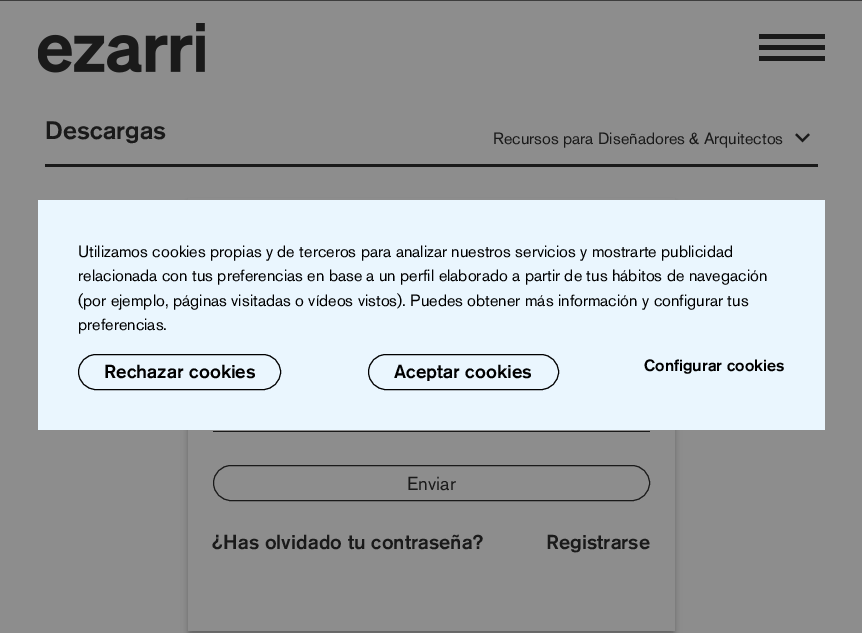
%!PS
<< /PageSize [862 633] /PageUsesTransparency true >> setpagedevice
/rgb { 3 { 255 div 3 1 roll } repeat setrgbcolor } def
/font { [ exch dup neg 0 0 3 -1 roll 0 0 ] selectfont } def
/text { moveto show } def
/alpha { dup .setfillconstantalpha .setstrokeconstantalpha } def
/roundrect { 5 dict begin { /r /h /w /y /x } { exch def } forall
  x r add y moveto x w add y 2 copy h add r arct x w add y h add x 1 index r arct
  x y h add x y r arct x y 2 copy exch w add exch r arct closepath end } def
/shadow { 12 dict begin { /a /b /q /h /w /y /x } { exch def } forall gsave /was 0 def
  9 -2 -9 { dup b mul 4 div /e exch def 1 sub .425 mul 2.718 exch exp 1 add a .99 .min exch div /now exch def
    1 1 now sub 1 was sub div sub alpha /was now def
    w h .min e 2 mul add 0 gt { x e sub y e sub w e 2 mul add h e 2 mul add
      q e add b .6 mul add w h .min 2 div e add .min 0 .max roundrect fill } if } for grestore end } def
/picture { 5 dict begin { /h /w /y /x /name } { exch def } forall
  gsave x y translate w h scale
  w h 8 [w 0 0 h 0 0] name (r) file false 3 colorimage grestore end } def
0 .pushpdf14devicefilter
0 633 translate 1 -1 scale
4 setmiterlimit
141 141 141 rgb
0 0 862 633 rectfill
(img_01.rgb) 38 23 167 50 picture
26 26 26 rgb
759 34 66 5 rectfill
759 45 66 5 rectfill
759 56 66 5 rectfill
45 164 773 3 rectfill
(img_02.rgb) 795 133 15 10 picture
gsave
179 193 moveto 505 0 rlineto 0 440 rlineto -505 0 rlineto closepath 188 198 moveto 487 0 rlineto 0 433 rlineto -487 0 rlineto closepath eoclip newpath
189 203 485 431 0 3 0.3 shadow
grestore
gsave
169 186 moveto 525 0 rlineto 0 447 rlineto -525 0 rlineto closepath 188 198 moveto 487 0 rlineto 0 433 rlineto -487 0 rlineto closepath eoclip newpath
188 205 487 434 0 6 0.14 shadow
grestore
213 431 437 1 rectfill
213.5 465.5 436 35 17.5 roundrect stroke
61 61 61 rgb
0 0 862 1 rectfill
234 246 254 rgb
38 200 787 230 rectfill
0 0 0 rgb
78.5 354.5 202 35 17.5 roundrect stroke
368.5 354.5 190 35 17.5 roundrect stroke
/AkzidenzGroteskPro-Medium 25 font
26 26 26 rgb
(Descargas) 45 139 text
/AkzidenzGroteskPro-Regular 16.25 font
(Recursos para Diseñadores & Arquitectos) 493 144 text
/AkzidenzGroteskPro-Regular 18.75 font
(Enviar) 407 490 text
/AkzidenzGroteskPro-Medium 20 font
(¿Has olvidado tu contraseña?) 212 549 text
(Registrarse) 546 549 text
/AkzidenzGroteskPro-Regular 16.25 font
0 0 0 rgb
(Utilizamos cookies propias y de terceros para analizar nuestros servicios y mostrarte publicidad) 78 257 text
(relacionada con tus preferencias en base a un perfil elaborado a partir de tus hábitos de navegación) 78 281 text
(\(por ejemplo, páginas visitadas o vídeos vistos\). Puedes obtener más información y configurar tus) 78 306 text
(preferencias.) 78 330 text
/AkzidenzGroteskPro-Medium 18.75 font
(Rechazar cookies) 104 378 text
(Aceptar cookies) 394 378 text
/AkzidenzGroteskPro-Medium 16.25 font
(Configurar cookies) 644 371 text
.poppdf14devicefilter showpage
